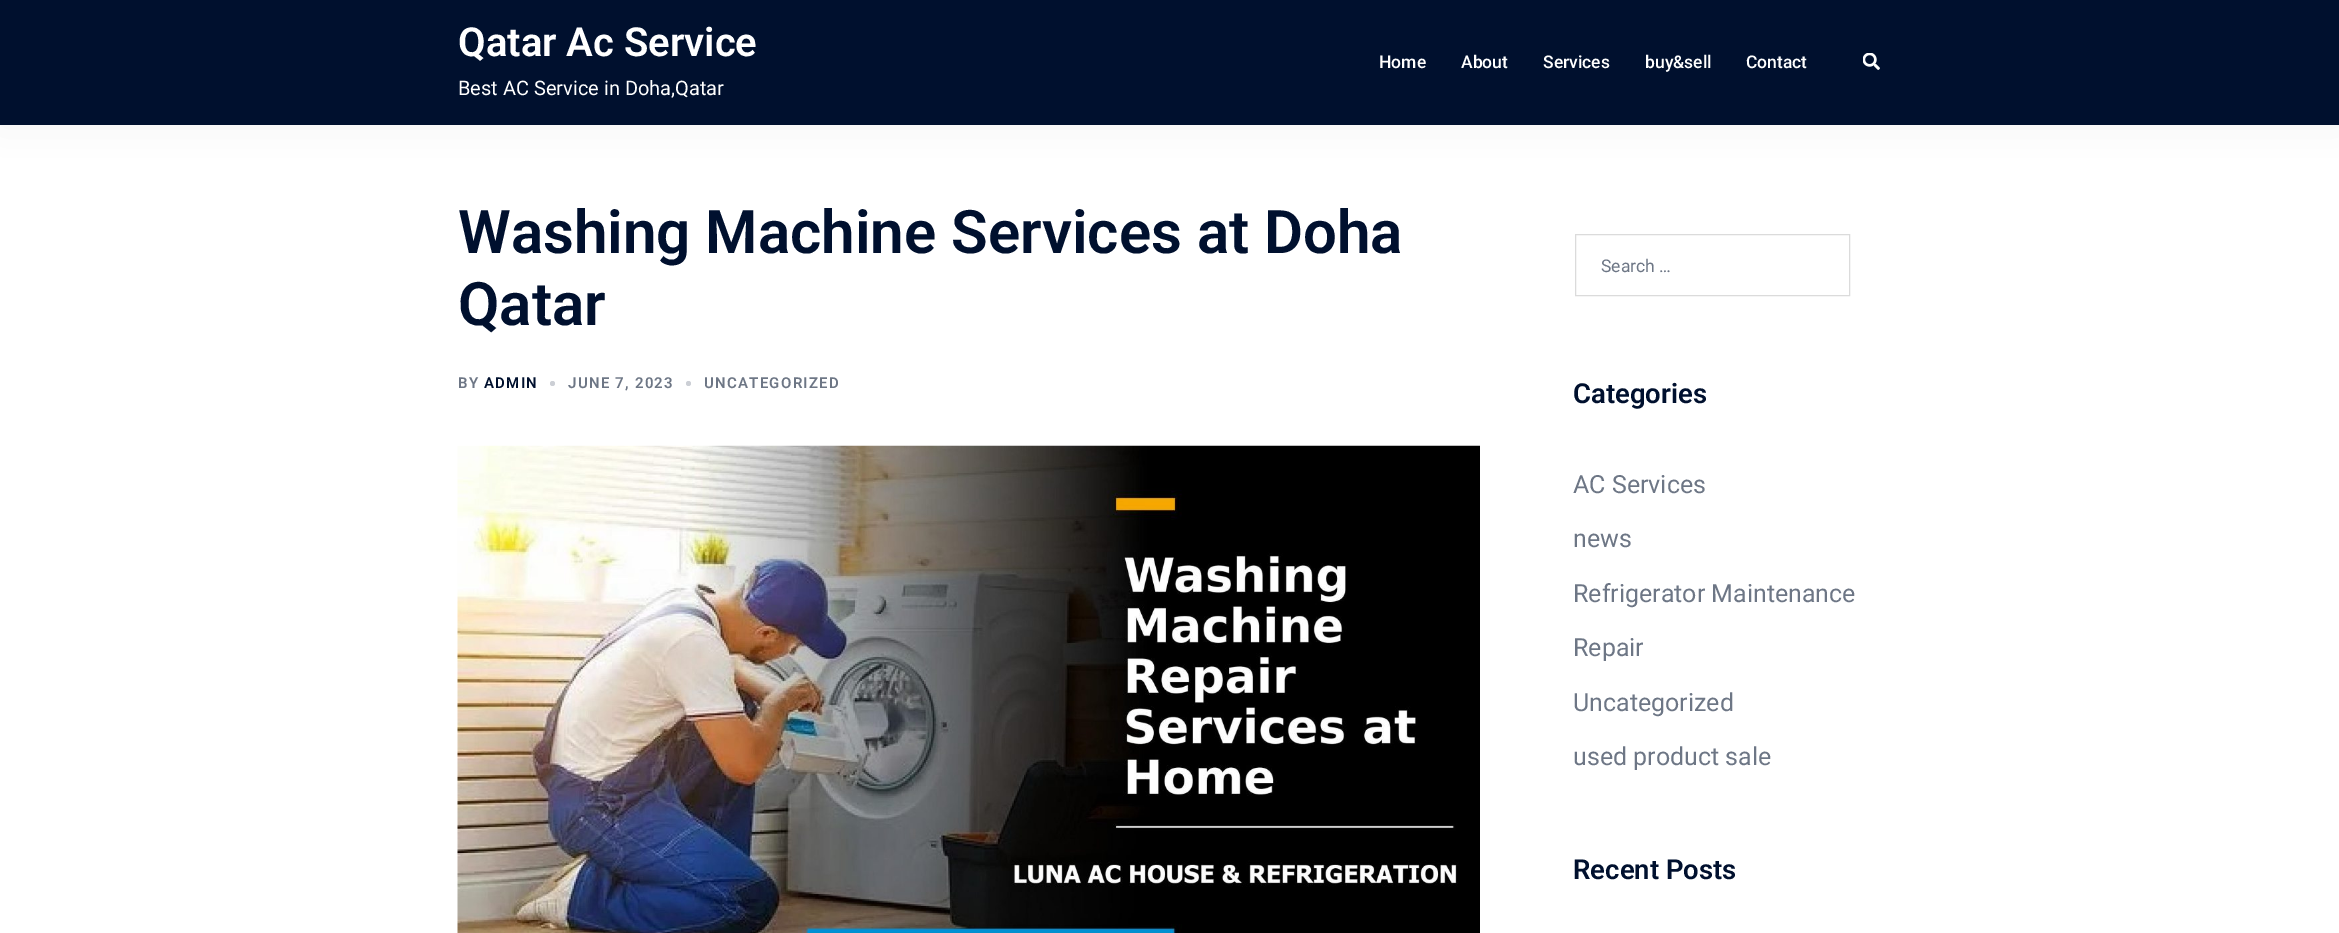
%!PS
<< /PageSize [2339 933] /PageUsesTransparency true >> setpagedevice
/rgb { 3 { 255 div 3 1 roll } repeat setrgbcolor } def
/font { [ exch dup neg 0 0 3 -1 roll 0 0 ] selectfont } def
/text { moveto show } def
/alpha { dup .setfillconstantalpha .setstrokeconstantalpha } def
/circle { newpath 0 360 arc closepath } def
/roundrect { 5 dict begin { /r /h /w /y /x } { exch def } forall
  x r add y moveto x w add y 2 copy h add r arct x w add y h add x 1 index r arct
  x y h add x y r arct x y 2 copy exch w add exch r arct closepath end } def
/shadow { 12 dict begin { /a /b /q /h /w /y /x } { exch def } forall gsave /was 0 def
  9 -2 -9 { dup b mul 4 div /e exch def 1 sub .425 mul 2.718 exch exp 1 add a .99 .min exch div /now exch def
    1 1 now sub 1 was sub div sub alpha /was now def
    w h .min e 2 mul add 0 gt { x e sub y e sub w e 2 mul add h e 2 mul add
      q e add b .6 mul add w h .min 2 div e add .min 0 .max roundrect fill } if } for grestore end } def
/picture { 5 dict begin { /h /w /y /x /name } { exch def } forall
  gsave x y translate w h scale
  w h 8 [w 0 0 h 0 0] name (r) file false 3 colorimage grestore end } def
0 .pushpdf14devicefilter
0 933 translate 1 -1 scale
4 setmiterlimit
255 255 255 rgb
0 0 2339 933 rectfill
0 0 0 rgb
0 0 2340 125 0 19 0.05 shadow
0 16 46 rgb
0 0 2339 125 rectfill
(img_01.rgb) 1863 53 17 17 picture
204 207 213 rgb
552.5 383.5 2.5 circle fill
688.5 383.5 2.5 circle fill
(img_02.rgb) 457 445 1023 488 picture
219 219 219 rgb
1575.5 234.5 274 61 rectstroke
/Roboto-SemiBold 40 font
255 255 255 rgb
(Qatar Ac Service) 458 56 text
/Roboto-Regular 20 font
(Best AC Service in Doha,Qatar) 458 95 text
/Roboto-Medium 17.5 font
(Home) 1379 68 text
(About) 1461 68 text
(Services) 1543 68 text
(buy&sell) 1645 68 text
(Contact) 1746 68 text
/Roboto-SemiBold 60 font
0 16 46 rgb
(Washing Machine Services at Doha) 458 253 text
(Qatar) 458 325 text
/Roboto-SemiBold 15 font
109 118 133 rgb
458 388 moveto 1.25 0 (BY) ashow
0 16 46 rgb
484 388 moveto 1.25 0 (ADMIN) ashow
109 118 133 rgb
568 388 moveto 1.25 0 (JUNE 7, 2023) ashow
704 388 moveto 1.25 0 (UNCATEGORIZED) ashow
/Roboto-Regular 17.5 font
(Search …) 1601 272 text
/Roboto-SemiBold 27.5 font
0 16 46 rgb
(Categories) 1573 403 text
/Roboto-Regular 25 font
109 118 133 rgb
(AC Services) 1573 493 text
(news) 1573 547 text
(Refrigerator Maintenance) 1573 602 text
(Repair) 1573 656 text
(Uncategorized) 1573 711 text
(used product sale) 1573 765 text
/Roboto-SemiBold 27.5 font
0 16 46 rgb
(Recent Posts) 1573 879 text
.poppdf14devicefilter showpage
